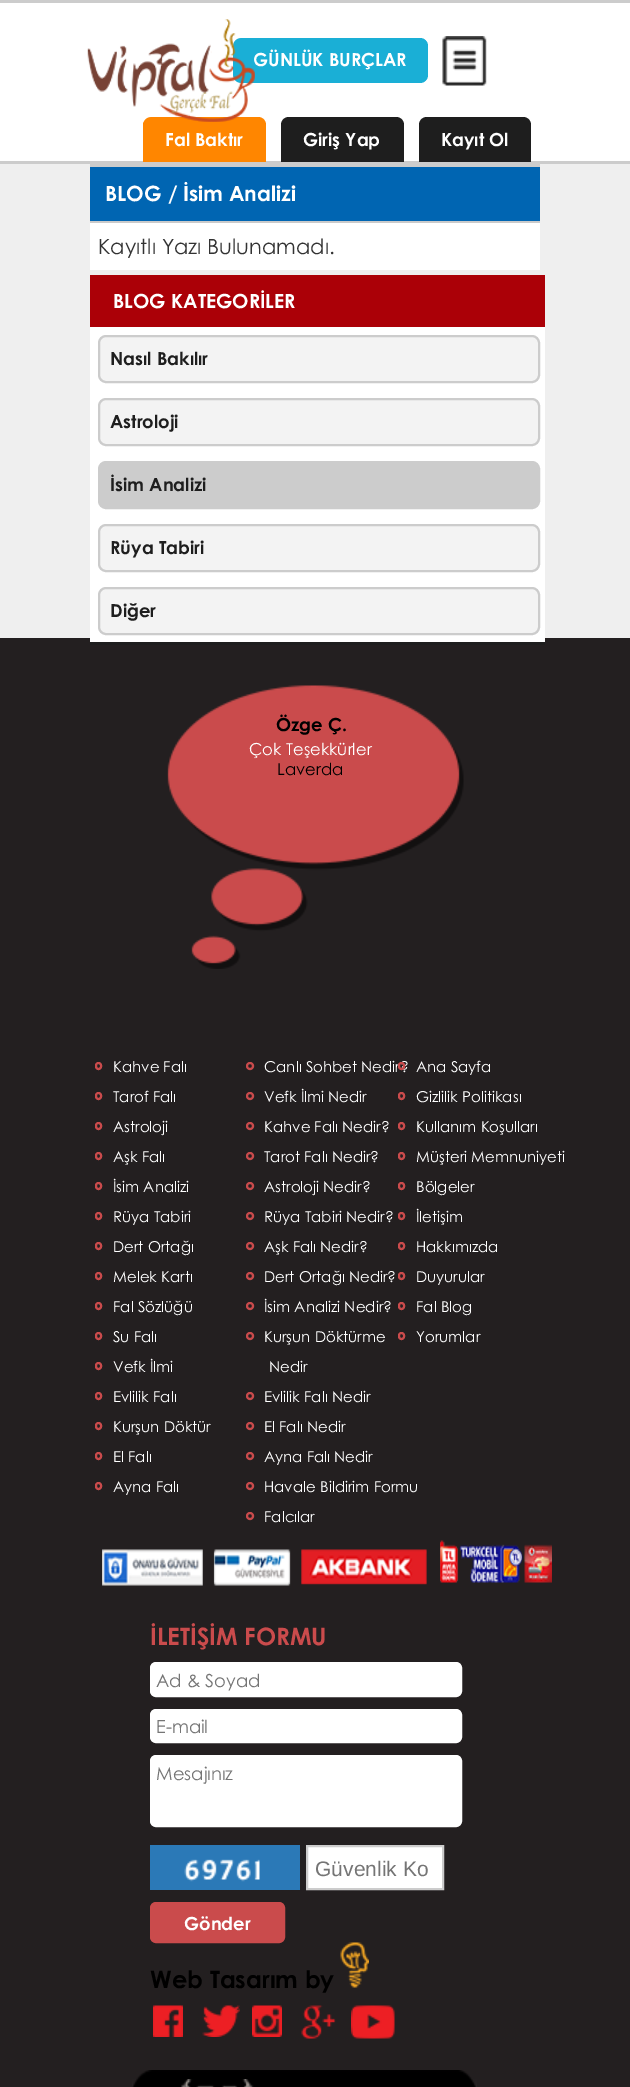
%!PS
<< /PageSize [630 2087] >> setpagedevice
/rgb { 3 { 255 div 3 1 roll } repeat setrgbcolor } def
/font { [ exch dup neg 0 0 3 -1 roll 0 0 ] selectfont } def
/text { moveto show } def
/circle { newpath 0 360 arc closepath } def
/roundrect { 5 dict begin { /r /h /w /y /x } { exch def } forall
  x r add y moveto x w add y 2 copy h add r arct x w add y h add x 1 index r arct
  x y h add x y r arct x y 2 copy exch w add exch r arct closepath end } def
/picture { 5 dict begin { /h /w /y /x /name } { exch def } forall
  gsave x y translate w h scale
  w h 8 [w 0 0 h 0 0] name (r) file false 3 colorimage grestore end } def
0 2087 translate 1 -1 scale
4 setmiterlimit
239 239 239 rgb
0 0 630 2087 rectfill
255 255 255 rgb
0 3 630 158 rectfill
26 175 214 rgb
233 38 195 45 8 roundrect fill
(img_01.rgb) 442 36 45 50 picture
204 204 204 rgb
90 164 450 3 rectfill
255 255 255 rgb
90 223 450 47 rectfill
0 101 178 rgb
90 167 450 54 rectfill
202 202 202 rgb
90 221 450 2 rectfill
35 31 32 rgb
0 638 630 1449 rectfill
255 255 255 rgb
90 327 455 315 rectfill
30 30 30 rgb
90 642 455 3 rectfill
171 0 7 rgb
90 275 455 52 rectfill
243 243 243 rgb
99 336 440 46 7 roundrect gsave fill grestore
204 204 204 rgb
2 setlinewidth
stroke
243 243 243 rgb
99 399 440 46 7 roundrect gsave fill grestore
204 204 204 rgb
stroke
99 462 440 46 7 roundrect gsave fill grestore
stroke
243 243 243 rgb
99 525 440 46 7 roundrect gsave fill grestore
204 204 204 rgb
stroke
243 243 243 rgb
99 588 440 46 7 roundrect gsave fill grestore
204 204 204 rgb
stroke
0 0 630 3 rectfill
0 161 630 3 rectfill
255 134 0 rgb
151 117 moveto 107 0 rlineto 4.5 0 8 3.5 8 8 rcurveto 0 37 rlineto -123 0 rlineto 0 -37 rlineto 0 -4.5 3.5 -8 8 -8 rcurveto closepath fill
30 30 30 rgb
289 117 moveto 107 0 rlineto 4.5 0 8 3.5 8 8 rcurveto 0 37 rlineto -123 0 rlineto 0 -37 rlineto 0 -4.5 3.5 -8 8 -8 rcurveto closepath fill
427 117 moveto 96 0 rlineto 4.5 0 8 3.5 8 8 rcurveto 0 37 rlineto -112 0 rlineto 0 -37 rlineto 0 -4.5 3.5 -8 8 -8 rcurveto closepath fill
(img_03.rgb) 167 685 297 284 picture
202 75 76 rgb
96 1063 5 6 2.5 roundrect stroke
96 1093 5 6 2.5 roundrect stroke
96 1123 5 6 2.5 roundrect stroke
96 1153 5 6 2.5 roundrect stroke
96 1183 5 6 2.5 roundrect stroke
96 1213 5 6 2.5 roundrect stroke
96 1243 5 6 2.5 roundrect stroke
96 1273 5 6 2.5 roundrect stroke
96 1303 5 6 2.5 roundrect stroke
96 1333 5 6 2.5 roundrect stroke
96 1363 5 6 2.5 roundrect stroke
96 1393 5 6 2.5 roundrect stroke
96 1423 5 6 2.5 roundrect stroke
96 1453 5 6 2.5 roundrect stroke
96 1483 5 6 2.5 roundrect stroke
250 1066 3 circle stroke
250 1096 3 circle stroke
250 1126 3 circle stroke
250 1156 3 circle stroke
250 1186 3 circle stroke
250 1216 3 circle stroke
250 1246 3 circle stroke
250 1276 3 circle stroke
250 1306 3 circle stroke
250 1336 3 circle stroke
250 1396 3 circle stroke
250 1426 3 circle stroke
250 1456 3 circle stroke
250 1486 3 circle stroke
250 1516 3 circle stroke
399 1093 5 6 2.5 roundrect stroke
399 1123 5 6 2.5 roundrect stroke
399 1153 5 6 2.5 roundrect stroke
399 1183 5 6 2.5 roundrect stroke
399 1213 5 6 2.5 roundrect stroke
399 1243 5 6 2.5 roundrect stroke
399 1273 5 6 2.5 roundrect stroke
399 1303 5 6 2.5 roundrect stroke
399 1333 5 6 2.5 roundrect stroke
(img_04.rgb) 102 1540 450 46 picture
255 255 255 rgb
151 1663 310 33 5 roundrect gsave fill grestore
stroke
151 1710 310 32 5 roundrect gsave fill grestore
stroke
151 1756 310 70 5 roundrect gsave fill grestore
stroke
43 121 183 rgb
150 1845 150 45 rectfill
(img_05.rgb) 184 1859 76 23 picture
255 255 255 rgb
307 1846 moveto 136 0 rlineto 0 43 rlineto -136 0 rlineto closepath gsave fill grestore
204 204 204 rgb
stroke
202 75 76 rgb
151 1903 133 39 5 roundrect gsave fill grestore
stroke
(img_06.rgb) 340 1942 29 46 picture
(img_07.rgb) 153 2005 30 32 picture
(img_08.rgb) 202 2005 38 32 picture
(img_09.rgb) 252 2005 30 32 picture
(img_10.rgb) 301 2005 35 34 picture
(img_11.rgb) 351 2005 44 34 picture
(img_12.rgb) 132 2070 345 17 picture
(img_13.rgb) 181 2079 73 8 picture
/CenturyGothic-Bold 18 font
255 255 255 rgb
(GÜNLÜK BURÇLAR) 253 66 text
/CenturyGothic-Bold 21 font
(BLOG / İsim Analizi) 105 201 text
/CenturyGothic-Regular 21 font
51 51 51 rgb
(Kayıtlı Yazı Bulunamadı.) 98 254 text
/CenturyGothic-Bold 19.5 font
255 255 255 rgb
(BLOG KATEGORİLER) 113 308 text
/CenturyGothic-Bold 18 font
30 30 30 rgb
(Nasıl Bakılır) 110 365 text
(Astroloji) 110 428 text
(İsim Analizi) 110 491 text
(Rüya Tabiri) 110 554 text
(Diğer) 110 617 text
(img_02.rgb) 87 19 168 103 picture
255 255 255 rgb
(Fal Baktır) 165 146 text
(Giriş Yap) 303 146 text
(Kayıt Ol) 441 146 text
0 0 0 rgb
(Özge Ç.) 276 731 text
/CenturyGothic-Regular 16.5 font
255 255 255 rgb
(Çok Teşekkürler) 249 755 text
0 0 0 rgb
(Laverda) 277 775 text
/CenturyGothic-Regular 15 font
255 255 255 rgb
(Kahve Falı) 113 1072 text
(Tarof Falı) 113 1102 text
(Astroloji) 113 1132 text
(Aşk Falı) 113 1162 text
(İsim Analizi) 113 1192 text
(Rüya Tabiri) 113 1222 text
(Dert Ortağı) 113 1252 text
(Melek Kartı) 113 1282 text
(Fal Sözlüğü) 113 1312 text
(Su Falı) 113 1342 text
(Vefk İlmi) 113 1372 text
(Evlilik Falı) 113 1402 text
(Kurşun Döktür) 113 1432 text
(El Falı) 113 1462 text
(Ayna Falı) 113 1492 text
(Canlı Sohbet Nedir?) 264 1072 text
(Vefk İlmi Nedir) 264 1102 text
(Kahve Falı Nedir?) 264 1132 text
(Tarot Falı Nedir?) 264 1162 text
(Astroloji Nedir?) 264 1192 text
(Rüya Tabiri Nedir?) 264 1222 text
(Aşk Falı Nedir?) 264 1252 text
(Dert Ortağı Nedir?) 264 1282 text
(İsim Analizi Nedir?) 264 1312 text
(Kurşun Döktürme) 264 1342 text
(Nedir) 269 1372 text
(Evlilik Falı Nedir) 264 1402 text
(El Falı Nedir) 264 1432 text
(Ayna Falı Nedir) 264 1462 text
(Havale Bildirim Formu) 264 1492 text
(Falcılar) 264 1522 text
202 75 76 rgb
399 1063 5 6 2.5 roundrect stroke
255 255 255 rgb
(Ana Sayfa) 416 1072 text
(Gizlilik Politikası) 416 1102 text
(Kullanım Koşulları) 416 1132 text
(Müşteri Memnuniyeti) 416 1162 text
(Bölgeler) 416 1192 text
(İletişim) 416 1222 text
(Hakkımızda) 416 1252 text
(Duyurular) 416 1282 text
(Fal Blog) 416 1312 text
(Yorumlar) 416 1342 text
/CenturyGothic-Bold 24 font
202 75 76 rgb
(İLETİŞİM FORMU) 150 1645 text
/CenturyGothic-Regular 18 font
117 117 117 rgb
(Ad & Soyad) 156 1687 text
(E-mail) 156 1733 text
(Mesajınız) 156 1780 text
/LiberationSans-Regular 21 font
(Güvenlik Ko) 315 1876 text
/CenturyGothic-Bold 18 font
255 255 255 rgb
(Gönder) 184 1930 text
/CenturyGothic-Bold 24 font
0 0 0 rgb
(Web Tasarım by) 150 1988 text
showpage
